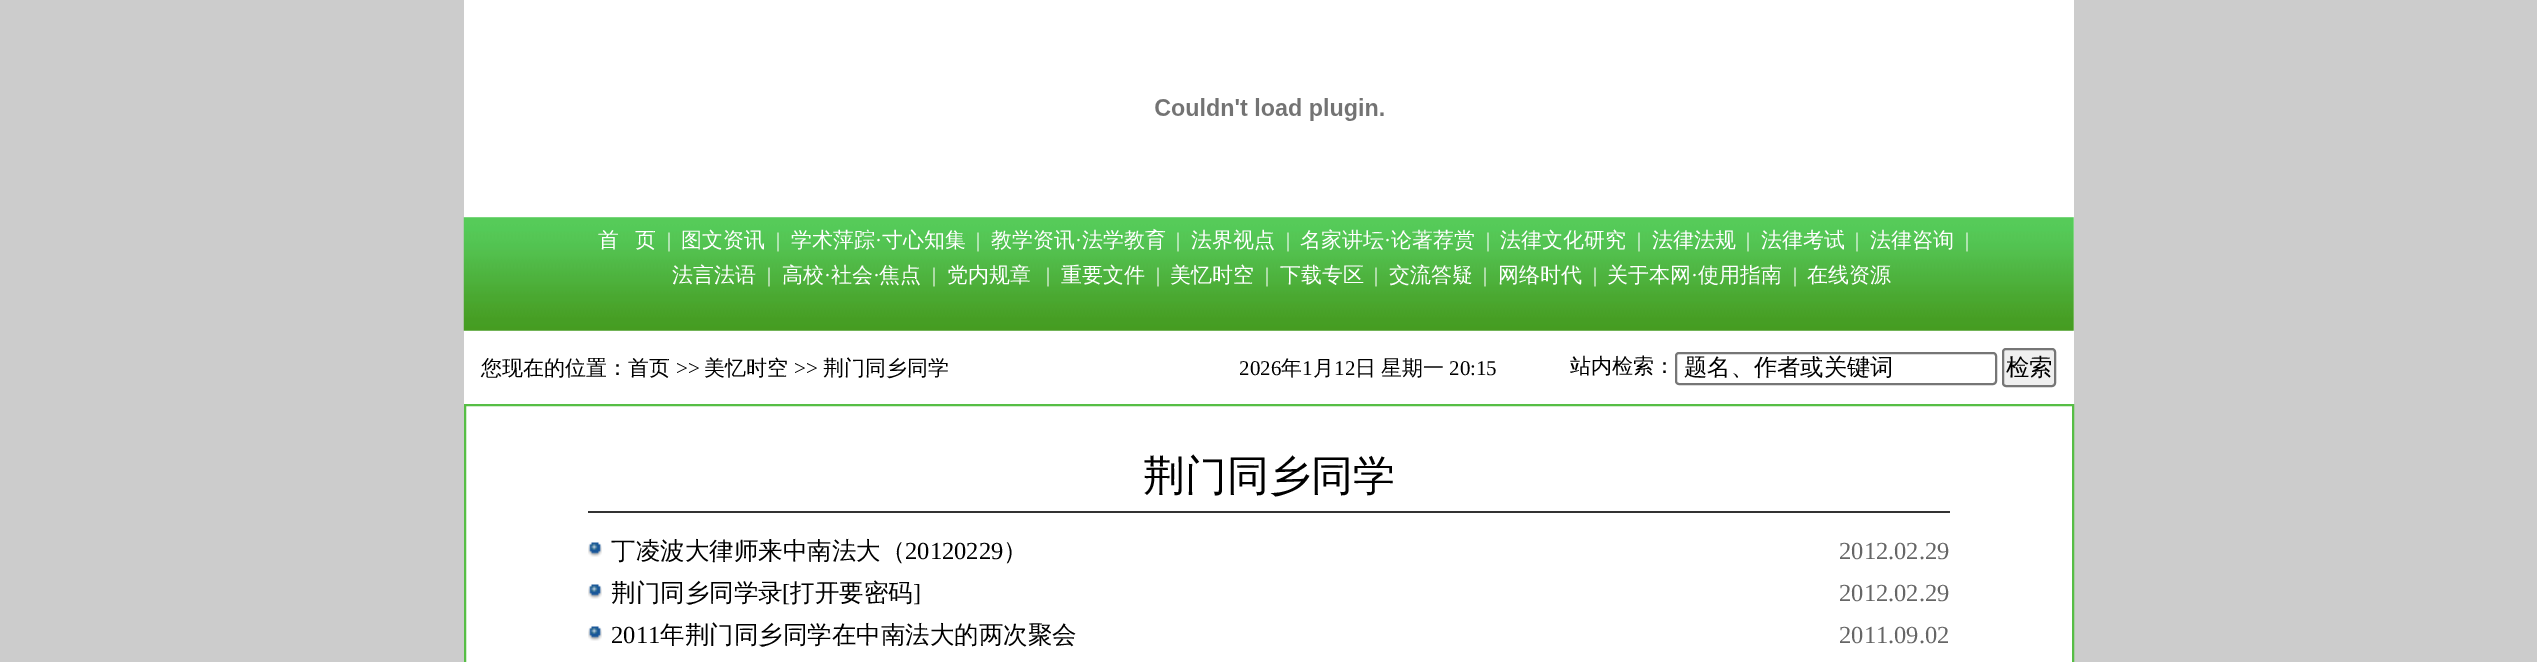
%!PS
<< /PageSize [2537 662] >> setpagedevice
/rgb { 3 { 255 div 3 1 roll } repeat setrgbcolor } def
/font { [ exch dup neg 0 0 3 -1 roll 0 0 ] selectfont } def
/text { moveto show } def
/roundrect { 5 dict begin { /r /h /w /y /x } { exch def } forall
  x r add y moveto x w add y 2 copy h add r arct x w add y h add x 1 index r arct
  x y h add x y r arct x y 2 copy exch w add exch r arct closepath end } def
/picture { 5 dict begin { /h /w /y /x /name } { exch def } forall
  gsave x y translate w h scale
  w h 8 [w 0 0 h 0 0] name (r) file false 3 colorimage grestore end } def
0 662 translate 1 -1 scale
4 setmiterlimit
204 204 204 rgb
0 0 2537 662 rectfill
255 255 255 rgb
464 0 1610 662 rectfill
(img_01.rgb) 1155 98 229 23 picture
(img_02.rgb) 463 217 1611 114 picture
118 118 118 rgb
2 setlinewidth
1676 353 320 31 3 roundrect stroke
239 239 239 rgb
2003 349 52 37 3 roundrect gsave fill grestore
118 118 118 rgb
stroke
86 190 69 rgb
465 405 1608 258 rectstroke
51 51 51 rgb
588 511 1362 2 rectfill
(img_03.rgb) 588 542 14 15 picture
(img_03.rgb) 588 584 14 15 picture
(img_03.rgb) 588 626 14 15 picture
/WenQuanYiZenHei-Medium 21 font
255 255 255 rgb
(首) 598 247 text
(页) 635 247 text
/LiberationSerif-Regular 21 font
(|) 667 247 text
/WenQuanYiZenHei-Medium 21 font
(图文资讯) 681 247 text
/LiberationSerif-Regular 21 font
(|) 776 247 text
/WenQuanYiZenHei-Medium 21 font
(学术萍踪) 791 247 text
/LiberationSerif-Regular 21 font
(·) 875 247 text
/WenQuanYiZenHei-Medium 21 font
(寸心知集) 882 247 text
/LiberationSerif-Regular 21 font
(|) 976 247 text
/WenQuanYiZenHei-Medium 21 font
(教学资讯) 991 247 text
/LiberationSerif-Regular 21 font
(·) 1075 247 text
/WenQuanYiZenHei-Medium 21 font
(法学教育) 1082 247 text
/LiberationSerif-Regular 21 font
(|) 1176 247 text
/WenQuanYiZenHei-Medium 21 font
(法界视点) 1191 247 text
/LiberationSerif-Regular 21 font
(|) 1286 247 text
/WenQuanYiZenHei-Medium 21 font
(名家讲坛) 1300 247 text
/LiberationSerif-Regular 21 font
(·) 1384 247 text
/WenQuanYiZenHei-Medium 21 font
(论著荐赏) 1391 247 text
/LiberationSerif-Regular 21 font
(|) 1486 247 text
/WenQuanYiZenHei-Medium 21 font
(法律文化研究) 1500 247 text
/LiberationSerif-Regular 21 font
(|) 1637 247 text
/WenQuanYiZenHei-Medium 21 font
(法律法规) 1652 247 text
/LiberationSerif-Regular 21 font
(|) 1746 247 text
/WenQuanYiZenHei-Medium 21 font
(法律考试) 1761 247 text
/LiberationSerif-Regular 21 font
(|) 1855 247 text
/WenQuanYiZenHei-Medium 21 font
(法律咨询) 1870 247 text
/LiberationSerif-Regular 21 font
(|) 1965 247 text
/WenQuanYiZenHei-Medium 21 font
(法言法语) 672 282 text
/LiberationSerif-Regular 21 font
(|) 767 282 text
/WenQuanYiZenHei-Medium 21 font
(高校) 782 282 text
/LiberationSerif-Regular 21 font
(·) 824 282 text
/WenQuanYiZenHei-Medium 21 font
(社会) 831 282 text
/LiberationSerif-Regular 21 font
(·) 873 282 text
/WenQuanYiZenHei-Medium 21 font
(焦点) 879 282 text
/LiberationSerif-Regular 21 font
(|) 932 282 text
/WenQuanYiZenHei-Medium 21 font
(党内规章) 947 282 text
/LiberationSerif-Regular 21 font
(|) 1046 282 text
/WenQuanYiZenHei-Medium 21 font
(重要文件) 1061 282 text
/LiberationSerif-Regular 21 font
(|) 1156 282 text
/WenQuanYiZenHei-Medium 21 font
(美忆时空) 1170 282 text
/LiberationSerif-Regular 21 font
(|) 1265 282 text
/WenQuanYiZenHei-Medium 21 font
(下载专区) 1280 282 text
/LiberationSerif-Regular 21 font
(|) 1374 282 text
/WenQuanYiZenHei-Medium 21 font
(交流答疑) 1389 282 text
/LiberationSerif-Regular 21 font
(|) 1483 282 text
/WenQuanYiZenHei-Medium 21 font
(网络时代) 1498 282 text
/LiberationSerif-Regular 21 font
(|) 1593 282 text
/WenQuanYiZenHei-Medium 21 font
(关于本网) 1607 282 text
/LiberationSerif-Regular 21 font
(·) 1691 282 text
/WenQuanYiZenHei-Medium 21 font
(使用指南) 1698 282 text
/LiberationSerif-Regular 21 font
(|) 1793 282 text
/WenQuanYiZenHei-Medium 21 font
(在线资源) 1807 282 text
0 0 0 rgb
(您现在的位置：首页) 481 375 text
/LiberationSerif-Regular 21 font
(>>) 676 375 text
/WenQuanYiZenHei-Medium 21 font
(美忆时空) 704 375 text
/LiberationSerif-Regular 21 font
(>>) 794 375 text
/WenQuanYiZenHei-Medium 21 font
(荆门同乡同学) 823 375 text
/LiberationSerif-Regular 21 font
(2026) 1239 375 text
/WenQuanYiZenHei-Medium 21 font
(年) 1281 375 text
/LiberationSerif-Regular 21 font
(1) 1302 375 text
/WenQuanYiZenHei-Medium 21 font
(月) 1313 375 text
/LiberationSerif-Regular 21 font
(12) 1334 375 text
/WenQuanYiZenHei-Medium 21 font
1355 375 moveto -1 0 32 (日 星期一) widthshow
/LiberationSerif-Regular 21 font
(20:15) 1449 375 text
/WenQuanYiZenHei-Medium 21 font
(站内检索：) 1570 373 text
/WenQuanYiZenHei-Medium 23.25 font
(题名、作者或关键词) 1684 375 text
(检索) 2006 375 text
/WenQuanYiZenHei-Medium 42 font
(荆门同乡同学) 1143 490 text
/WenQuanYiZenHei-Medium 24.5 font
(丁凌波大律师来中南法大（) 611 559 text
/LiberationSerif-Regular 24.5 font
(20120229) 905 559 text
/WenQuanYiZenHei-Medium 24.5 font
(）) 1003 559 text
/LiberationSerif-Regular 24.5 font
102 102 102 rgb
(2012.02.29) 1839 559 text
/WenQuanYiZenHei-Medium 24.5 font
0 0 0 rgb
(荆门同乡同学录) 611 601 text
/LiberationSerif-Regular 24.5 font
([) 782 601 text
/WenQuanYiZenHei-Medium 24.5 font
(打开要密码) 790 601 text
/LiberationSerif-Regular 24.5 font
(]) 913 601 text
102 102 102 rgb
(2012.02.29) 1839 601 text
0 0 0 rgb
(2011) 611 643 text
/WenQuanYiZenHei-Medium 24.5 font
(年荆门同乡同学在中南法大的两次聚会) 660 643 text
/LiberationSerif-Regular 24.5 font
102 102 102 rgb
(2011.09.02) 1839 643 text
showpage
